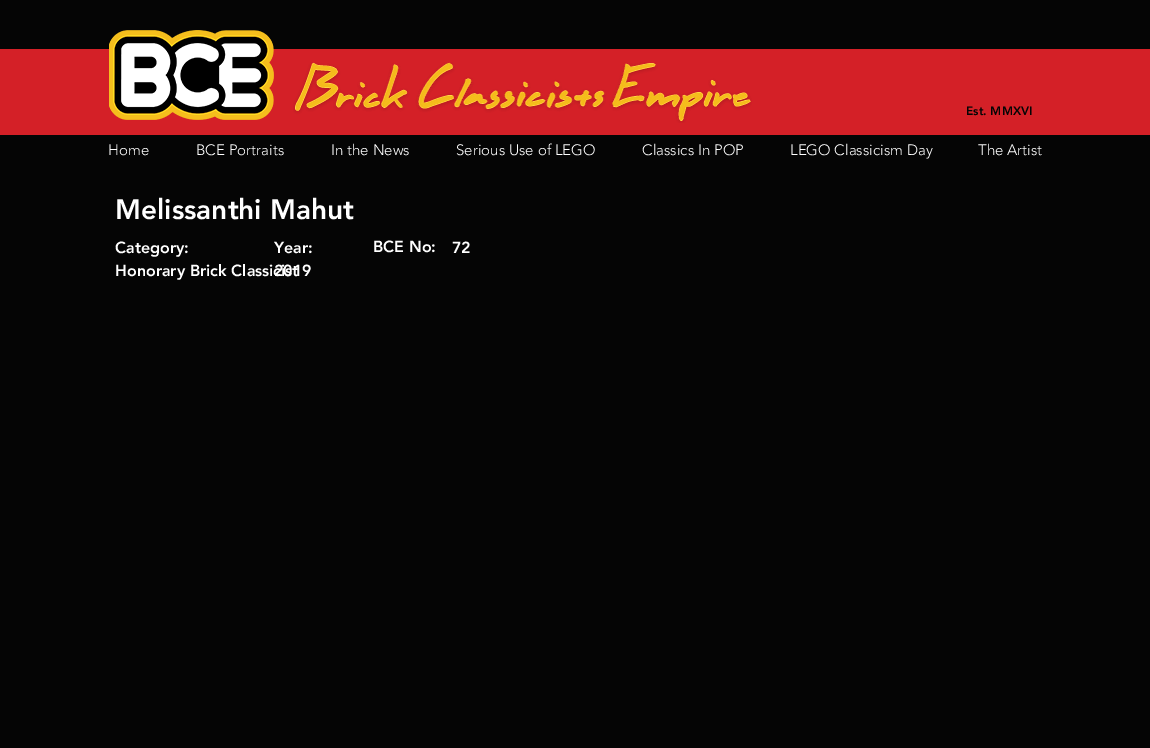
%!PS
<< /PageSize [1150 748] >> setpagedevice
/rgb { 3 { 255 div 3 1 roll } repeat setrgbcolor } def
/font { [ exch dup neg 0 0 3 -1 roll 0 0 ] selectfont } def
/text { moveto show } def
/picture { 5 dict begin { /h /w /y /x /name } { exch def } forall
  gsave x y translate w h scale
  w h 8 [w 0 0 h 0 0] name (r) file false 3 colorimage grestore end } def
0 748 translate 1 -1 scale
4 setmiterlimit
5 5 5 rgb
0 0 1150 748 rectfill
212 32 39 rgb
0 49 1150 86 rectfill
(img_01.rgb) 109 30 165 90 picture
(img_02.rgb) 293 62 459 61 picture
/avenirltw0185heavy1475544-Black 12 font
5 5 5 rgb
(Est. MMXVI) 966 115 text
/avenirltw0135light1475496-Light 15 font
255 255 255 rgb
(Home) 108 155 text
(BCE Portraits) 196 155 text
(In the News) 331 155 text
(Serious Use of LEGO) 456 155 text
(Classics In POP) 642 155 text
(LEGO Classicism Day) 790 155 text
(The Artist) 978 155 text
/avenirltw0185heavy1475544-Black 28 font
(Melissanthi Mahut) 115 219 text
/avenirltw0185heavy1475544-Black 16 font
(Category:) 115 253 text
(Year:) 274 253 text
(BCE No:) 373 252 text
(72) 452 253 text
(Honorary Brick Classicist) 115 276 text
(2019) 274 276 text
showpage
